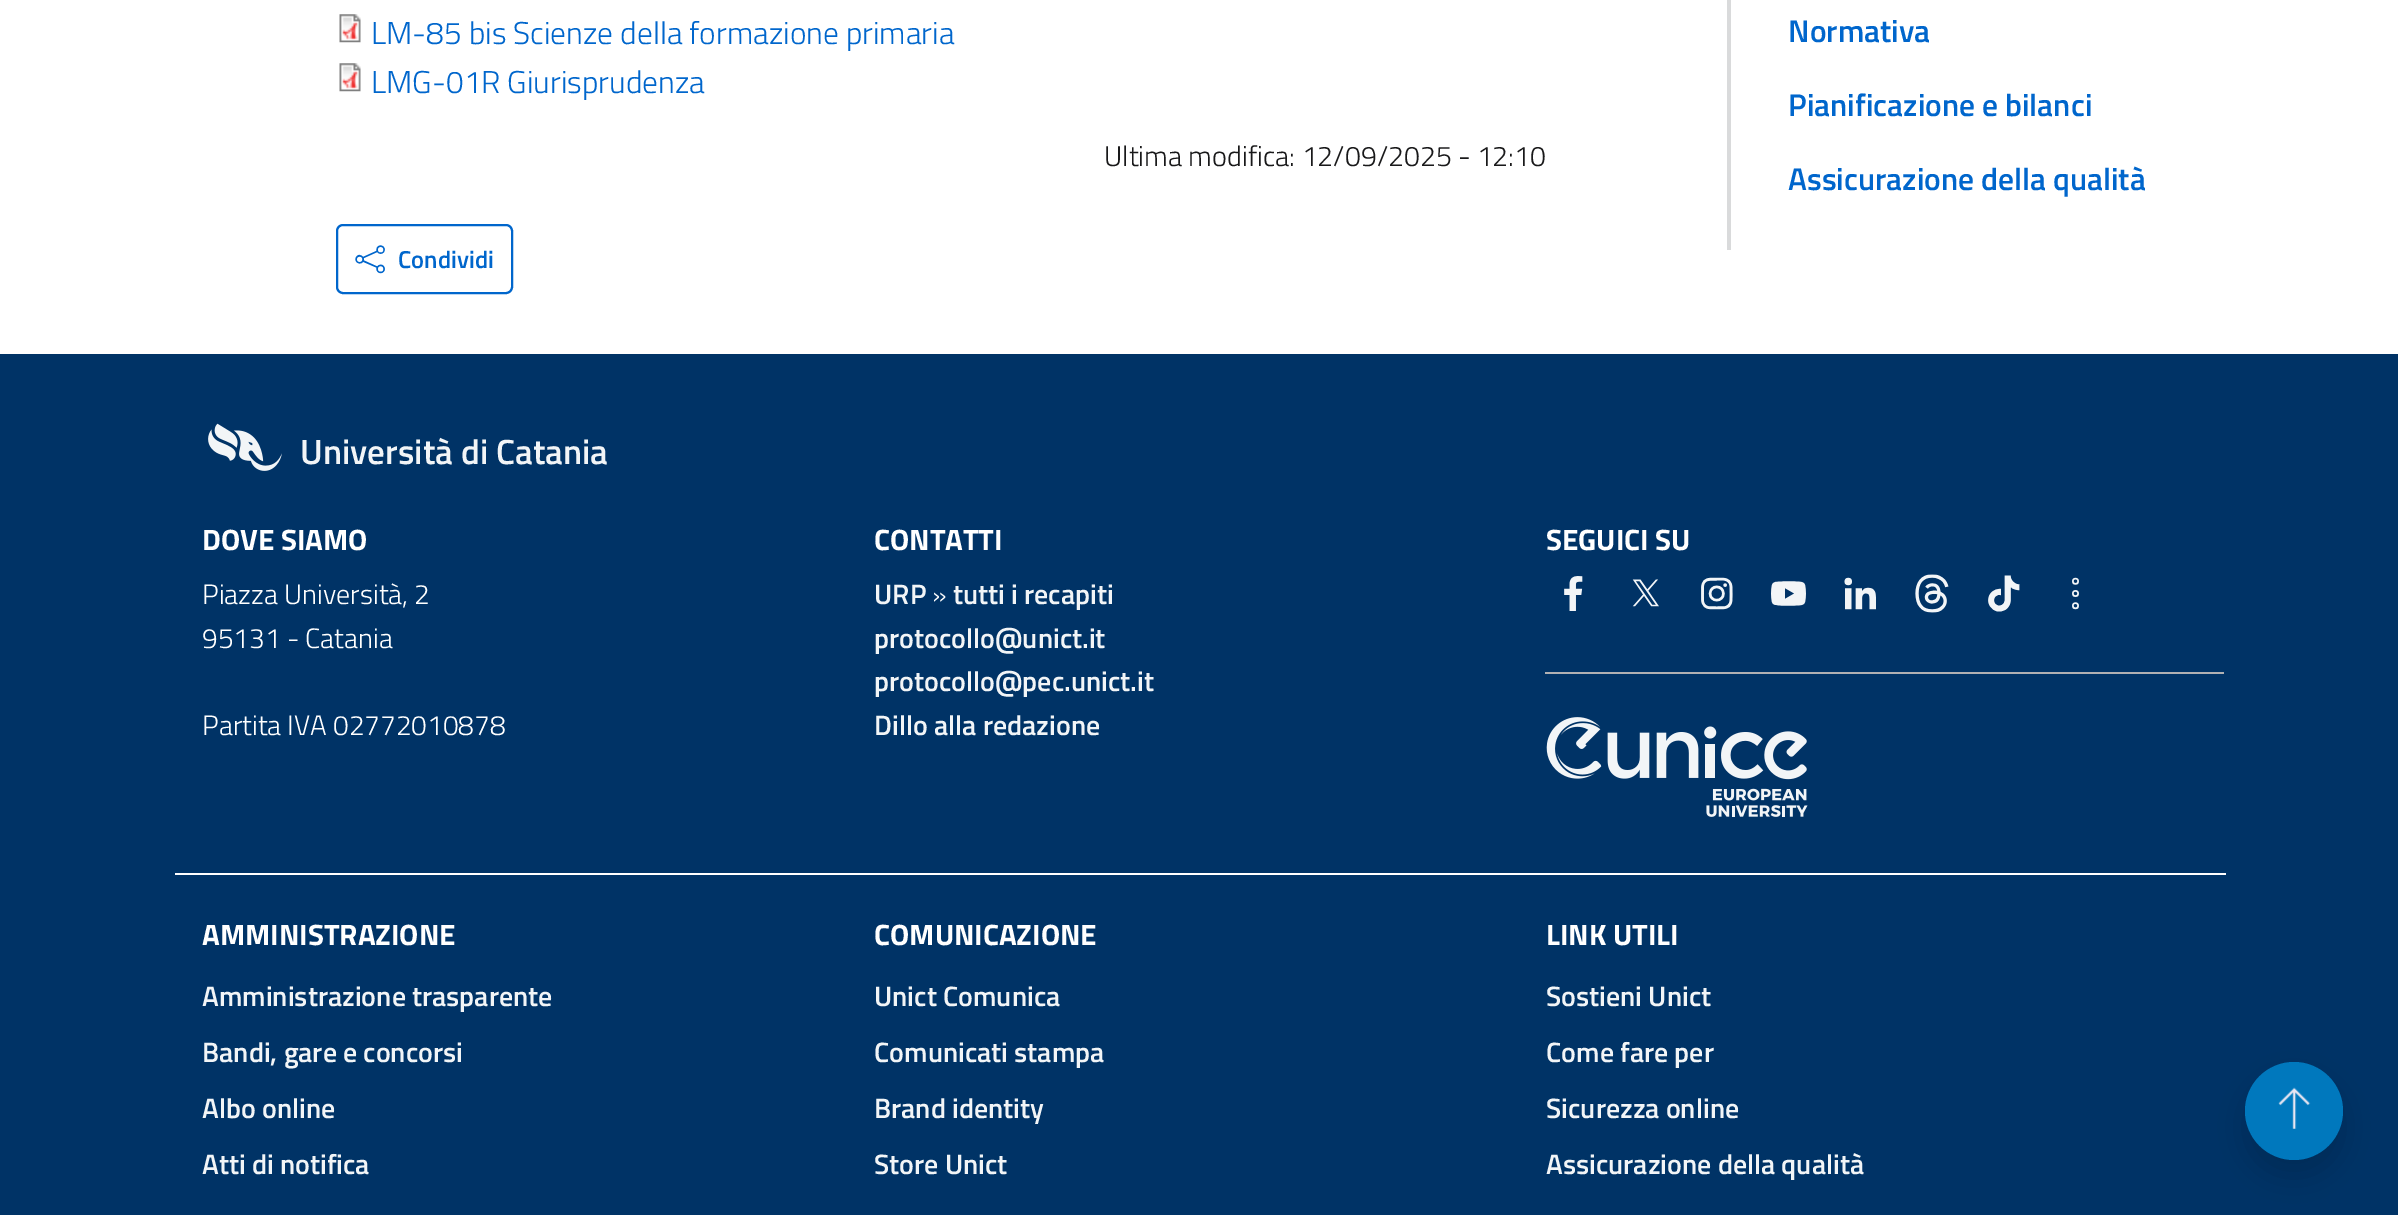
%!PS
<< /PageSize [2398 1215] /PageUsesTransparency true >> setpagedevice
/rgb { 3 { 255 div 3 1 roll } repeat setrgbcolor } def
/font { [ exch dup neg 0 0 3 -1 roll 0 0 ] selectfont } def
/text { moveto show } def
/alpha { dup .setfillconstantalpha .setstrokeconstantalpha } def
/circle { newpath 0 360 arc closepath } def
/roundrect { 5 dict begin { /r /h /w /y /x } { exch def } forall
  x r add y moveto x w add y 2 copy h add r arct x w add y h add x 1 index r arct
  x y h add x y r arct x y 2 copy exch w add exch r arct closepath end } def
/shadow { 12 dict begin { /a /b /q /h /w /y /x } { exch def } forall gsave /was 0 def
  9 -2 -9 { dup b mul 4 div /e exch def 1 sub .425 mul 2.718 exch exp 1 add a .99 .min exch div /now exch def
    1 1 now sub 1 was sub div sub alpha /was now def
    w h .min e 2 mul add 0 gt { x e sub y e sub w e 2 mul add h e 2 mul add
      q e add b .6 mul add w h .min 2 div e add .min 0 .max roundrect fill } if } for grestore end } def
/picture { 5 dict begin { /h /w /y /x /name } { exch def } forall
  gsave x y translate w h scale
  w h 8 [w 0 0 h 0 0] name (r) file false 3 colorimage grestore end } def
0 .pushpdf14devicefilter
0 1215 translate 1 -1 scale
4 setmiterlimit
255 255 255 rgb
0 0 2398 1215 rectfill
(img_01.rgb) 339 14 22 29 picture
(img_01.rgb) 339 63 22 29 picture
0 102 204 rgb
2 setlinewidth
337 225 175 68 6 roundrect stroke
(img_02.rgb) 355 245 30 29 picture
217 218 219 rgb
1727 0 4 250 rectfill
0 51 102 rgb
0 354 2398 861 rectfill
(img_03.rgb) 208 423 74 48 picture
(img_04.rgb) 1564 576 19 35 picture
(img_05.rgb) 1632 579 27 28 picture
(img_06.rgb) 1701 577 32 33 picture
(img_07.rgb) 1771 581 35 25 picture
(img_08.rgb) 1844 577 32 33 picture
(img_09.rgb) 1915 574 34 39 picture
(img_10.rgb) 1988 575 32 37 picture
(img_11.rgb) 2072 577 7 33 picture
177 177 179 rgb
1545 672 679 2 rectfill
(img_12.rgb) 1546 717 262 100 picture
255 255 255 rgb
175 873 2051 2 rectfill
0 0 0 rgb
2245 1078 98 98 49 16 0.15 shadow
0 120 189 rgb
2294 1111 49 circle fill
(img_13.rgb) 2278 1087 33 42 picture
/TitilliumWeb-Light 31.5 font
0 102 204 rgb
(LM-85 bis Scienze della formazione primaria) 371 44 text
(LMG-01R Giurisprudenza) 371 93 text
/TitilliumWeb-Light 28.4 font
25 25 26 rgb
(Ultima modifica: 12/09/2025 - 12:10) 1104 166 text
/TitilliumWeb-SemiBold 24.5 font
0 102 204 rgb
(Condividi) 398 268 text
/TitilliumWeb-SemiBold 31.5 font
(Normativa) 1788 42 text
(Pianificazione e bilanci) 1788 116 text
(Assicurazione della qualità) 1788 190 text
/TitilliumWeb-SemiBold 35 font
242 245 247 rgb
(Università di Catania) 300 464 text
/TitilliumWeb-Bold 29.5 font
255 255 255 rgb
(DOVE SIAMO) 202 550 text
/TitilliumWeb-Light 28 font
(Piazza Università, 2) 202 604 text
(95131 - Catania) 202 648 text
(Partita IVA 02772010878) 202 735 text
/TitilliumWeb-Bold 29.5 font
(CONTATTI) 874 550 text
/TitilliumWeb-SemiBold 28 font
242 245 247 rgb
(URP) 874 604 text
/TitilliumWeb-Light 28 font
255 255 255 rgb
(») 932 604 text
/TitilliumWeb-SemiBold 28 font
242 245 247 rgb
(tutti i recapiti) 953 604 text
(protocollo@unict.it) 874 648 text
(protocollo@pec.unict.it) 874 691 text
(Dillo alla redazione) 874 735 text
/TitilliumWeb-Bold 29.5 font
255 255 255 rgb
(SEGUICI SU) 1546 550 text
(AMMINISTRAZIONE) 202 945 text
/TitilliumWeb-SemiBold 28 font
242 245 247 rgb
(Amministrazione trasparente) 202 1006 text
(Bandi, gare e concorsi) 202 1062 text
(Albo online) 202 1118 text
(Atti di notifica) 202 1174 text
/TitilliumWeb-Bold 29.5 font
255 255 255 rgb
(COMUNICAZIONE) 874 945 text
/TitilliumWeb-SemiBold 28 font
242 245 247 rgb
(Unict Comunica) 874 1006 text
(Comunicati stampa) 874 1062 text
(Brand identity) 874 1118 text
(Store Unict) 874 1174 text
/TitilliumWeb-Bold 29.5 font
255 255 255 rgb
(LINK UTILI) 1546 945 text
/TitilliumWeb-SemiBold 28 font
242 245 247 rgb
(Sostieni Unict) 1546 1006 text
(Come fare per) 1546 1062 text
(Sicurezza online) 1546 1118 text
(Assicurazione della qualità) 1546 1174 text
.poppdf14devicefilter showpage
